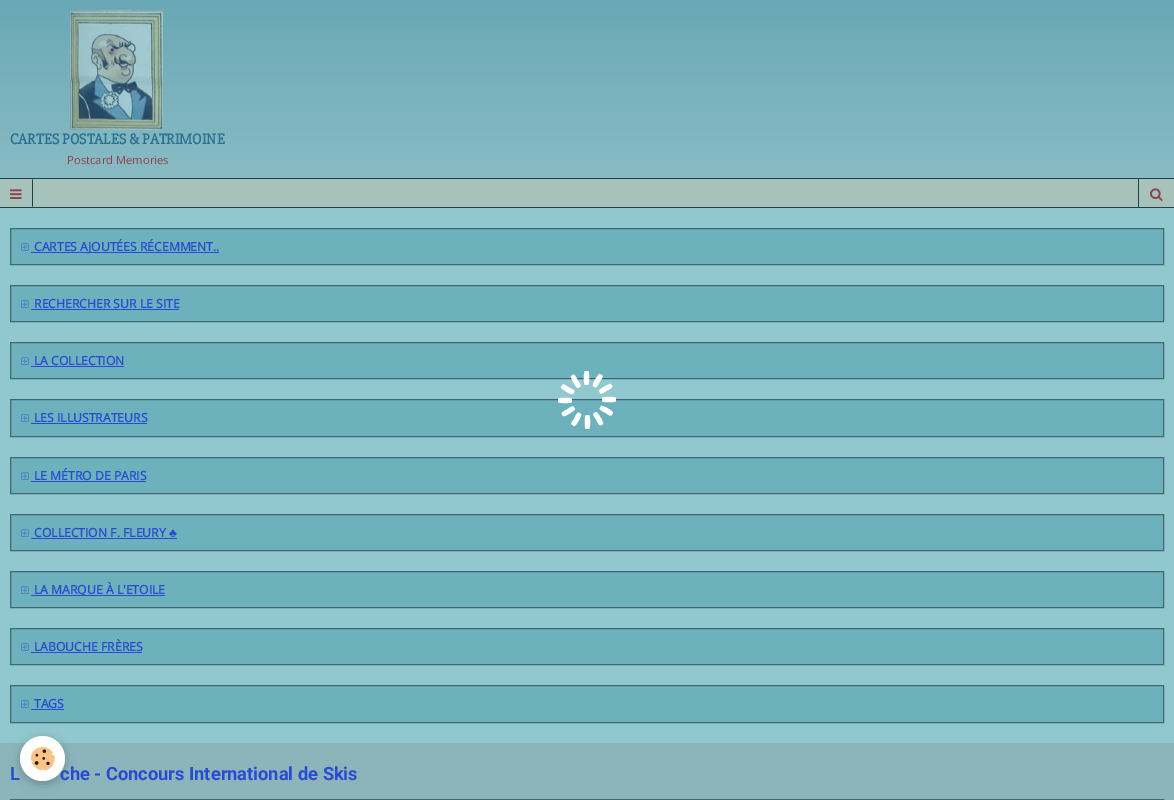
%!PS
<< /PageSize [1174 800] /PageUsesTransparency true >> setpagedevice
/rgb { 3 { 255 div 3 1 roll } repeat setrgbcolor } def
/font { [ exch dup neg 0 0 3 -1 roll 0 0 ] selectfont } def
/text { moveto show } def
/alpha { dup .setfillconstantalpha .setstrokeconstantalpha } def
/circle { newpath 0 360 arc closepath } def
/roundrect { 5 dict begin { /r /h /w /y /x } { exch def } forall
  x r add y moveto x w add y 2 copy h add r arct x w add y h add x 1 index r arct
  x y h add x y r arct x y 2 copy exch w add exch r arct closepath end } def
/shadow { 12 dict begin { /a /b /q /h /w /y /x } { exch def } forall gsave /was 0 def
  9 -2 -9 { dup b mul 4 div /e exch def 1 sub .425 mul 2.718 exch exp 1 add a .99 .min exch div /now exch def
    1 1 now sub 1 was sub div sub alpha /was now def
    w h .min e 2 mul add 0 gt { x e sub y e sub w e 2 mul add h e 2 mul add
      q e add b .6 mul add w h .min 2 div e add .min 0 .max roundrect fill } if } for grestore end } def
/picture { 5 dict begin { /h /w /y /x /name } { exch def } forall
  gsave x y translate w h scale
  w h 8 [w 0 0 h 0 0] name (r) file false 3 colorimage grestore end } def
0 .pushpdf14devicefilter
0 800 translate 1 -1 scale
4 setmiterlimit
162 202 209 rgb
0 0 1174 800 rectfill
(img_01.rgb) 0 743 1174 57 picture
gsave 0 0 moveto 1174 0 rlineto 0 178 rlineto -1174 0 rlineto closepath clip newpath
<< /ShadingType 2 /ColorSpace /DeviceRGB /Coords [587 0 587 208] /Extend [true true] /Function << /FunctionType 2 /Domain [0 1] /C0 [0.412 0.659 0.714] /C1 [0.557 0.745 0.78] /N 1 >> >> shfill grestore
(img_02.rgb) 70 10 93 120 picture
167 193 187 rgb
0 179 1174 28 rectfill
28 67 74 rgb
0 178 1174 1 rectfill
0 207 1174 1 rectfill
33 179 moveto 0 28 rlineto -1 -1 rlineto 0 -26 rlineto closepath fill
(img_03.rgb) 10 189 12 10 picture
1138 179 1 28 rectfill
(img_04.rgb) 1150 188 13 13 picture
145 200 207 rgb
0 208 1174 535 rectfill
108 177 188 rgb
10.5 228.5 moveto 1153 0 rlineto 0 36 rlineto -1153 0 rlineto closepath gsave fill grestore
65 104 112 rgb
stroke
(img_05.rgb) 21 243 8 8 picture
41 74 211 rgb
31 252 188 1 rectfill
108 177 188 rgb
10.5 285.5 moveto 1153 0 rlineto 0 36 rlineto -1153 0 rlineto closepath gsave fill grestore
65 104 112 rgb
stroke
(img_05.rgb) 21 300 8 8 picture
41 74 211 rgb
31 309 148 1 rectfill
108 177 188 rgb
10.5 342.5 moveto 1153 0 rlineto 0 36 rlineto -1153 0 rlineto closepath gsave fill grestore
65 104 112 rgb
stroke
(img_05.rgb) 21 357 8 8 picture
41 74 211 rgb
31 366 93 1 rectfill
108 177 188 rgb
10.5 399.5 moveto 1153 0 rlineto 0 37 rlineto -1153 0 rlineto closepath gsave fill grestore
65 104 112 rgb
stroke
(img_05.rgb) 21 414 8 8 picture
41 74 211 rgb
31 423 116 1 rectfill
108 177 188 rgb
10.5 457.5 moveto 1153 0 rlineto 0 36 rlineto -1153 0 rlineto closepath gsave fill grestore
65 104 112 rgb
stroke
(img_05.rgb) 21 472 8 8 picture
41 74 211 rgb
31 481 115 1 rectfill
108 177 188 rgb
10.5 514.5 moveto 1153 0 rlineto 0 36 rlineto -1153 0 rlineto closepath gsave fill grestore
65 104 112 rgb
stroke
(img_05.rgb) 21 529 8 8 picture
41 74 211 rgb
31 538 146 1 rectfill
108 177 188 rgb
10.5 571.5 moveto 1153 0 rlineto 0 36 rlineto -1153 0 rlineto closepath gsave fill grestore
65 104 112 rgb
stroke
(img_05.rgb) 21 586 8 8 picture
41 74 211 rgb
31 595 134 1 rectfill
108 177 188 rgb
10.5 628.5 moveto 1153 0 rlineto 0 36 rlineto -1153 0 rlineto closepath gsave fill grestore
65 104 112 rgb
stroke
(img_05.rgb) 21 643 8 8 picture
41 74 211 rgb
31 652 111 1 rectfill
108 177 188 rgb
10.5 685.5 moveto 1153 0 rlineto 0 37 rlineto -1153 0 rlineto closepath gsave fill grestore
65 104 112 rgb
stroke
(img_05.rgb) 21 700 8 8 picture
41 74 211 rgb
31 709 33 1 rectfill
65 104 112 rgb
10.5 799.5 1153 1 rectstroke
255 255 255 rgb
585 371 moveto 3 0 rlineto 1.5 1 1 6 1 7 rcurveto 0 1 0.5 6 -1 7 rcurveto -3 0 rlineto -1.5 0 -1.5 -14 0 -14 rcurveto closepath 600 374 moveto 2.5 1.5 rlineto 1 1.5 -2.5 5.5 -3 6.5 rcurveto -0.5 1 -2.5 5.5 -4 5.5 rcurveto -2.5 -1.5 rlineto -1.5 -1 5.5 -13 7 -12 rcurveto closepath fill
611 384 moveto 1.5 2.5 rlineto 0 1.5 -4.5 3.5 -5.5 4 rcurveto -1 0.5 -5 4 -6.5 3 rcurveto -1.5 -2.5 rlineto -0.5 -1.5 11.5 -8.5 12 -7 rcurveto closepath 616 398 moveto 0 3 rlineto -1 1.5 -6 1 -7 1 rcurveto -1 0 -6 0.5 -7 -1 rcurveto 0 -3 rlineto 0 -1.5 14 -1.5 14 0 rcurveto closepath 613 413 moveto -1.5 2.5 rlineto -1.5 1 -5.5 -2.5 -6.5 -3 rcurveto -1 -0.5 -5.5 -2.5 -5.5 -4 rcurveto 1.5 -2.5 rlineto 1 -1.5 13 5.5 12 7 rcurveto closepath fill
603 424 moveto -2.5 1.5 rlineto -1.5 0 -3.5 -4.5 -4 -5.5 rcurveto -0.5 -1 -4 -5 -3 -6.5 rcurveto 2.5 -1.5 rlineto 1.5 -0.5 8.5 11.5 7 12 rcurveto closepath 589 429 moveto -3 0 rlineto -1.5 -1 -1 -6 -1 -7 rcurveto 0 -1 -0.5 -6 1 -7 rcurveto 3 0 rlineto 1.5 0 1.5 14 0 14 rcurveto closepath 574 426 moveto -2.5 -1.5 rlineto -1 -1.5 2.5 -5.5 3 -6.5 rcurveto 0.5 -1 2.5 -5.5 4 -5.5 rcurveto 2.5 1.5 rlineto 1.5 1 -5.5 13 -7 12 rcurveto closepath fill
563 416 moveto -1.5 -2.5 rlineto 0 -1.5 4.5 -3.5 5.5 -4 rcurveto 1 -0.5 5 -4 6.5 -3 rcurveto 1.5 2.5 rlineto 0.5 1.5 -11.5 8.5 -12 7 rcurveto closepath 558 402 moveto 0 -3 rlineto 1 -1.5 6 -1 7 -1 rcurveto 1 0 6 -0.5 7 1 rcurveto 0 3 rlineto 0 1.5 -14 1.5 -14 0 rcurveto closepath 561 387 moveto 1.5 -2.5 rlineto 1.5 -1 5.5 2.5 6.5 3 rcurveto 1 0.5 5.5 2.5 5.5 4 rcurveto -1.5 2.5 rlineto -1 1.5 -13 -5.5 -12 -7 rcurveto closepath fill
571 376 moveto 2.5 -1.5 rlineto 1.5 0 3.5 4.5 4 5.5 rcurveto 0.5 1 4 5 3 6.5 rcurveto -2.5 1.5 rlineto -1.5 0.5 -8.5 -11.5 -7 -12 rcurveto closepath fill
0 0 0 rgb
20 739 45 45 22.5 5 0.24 shadow
/Slabo27px-Bold 15.2 font
40 113 144 rgb
(CARTES POSTALES & PATRIMOINE) 10 144 text
/OpenSans-Regular 11.25 font
140 67 74 rgb
(Postcard Memories) 67 164 text
/OpenSans-Bold 12.2 font
41 74 211 rgb
(CARTES AJOUTÉES RÉCEMMENT..) 34 251 text
(RECHERCHER SUR LE SITE) 34 308 text
(LA COLLECTION) 34 365 text
(LES ILLUSTRATEURS) 34 422 text
(LE MÉTRO DE PARIS) 34 480 text
(COLLECTION F. FLEURY) 34 537 text
/LiberationSerif-Bold 12.2 font
(♣) 169 537 text
/OpenSans-Bold 12.2 font
(LA MARQUE À L'ETOILE) 34 594 text
(LABOUCHE FRÈRES) 34 651 text
(TAGS) 34 708 text
/Roboto-Bold 18.25 font
(L) 10 780 text
(che - Concours International de Skis) 60 780 text
255 255 255 rgb
42.5 758.5 22.5 circle fill
(img_06.rgb) 30 746 25 25 picture
.poppdf14devicefilter showpage
